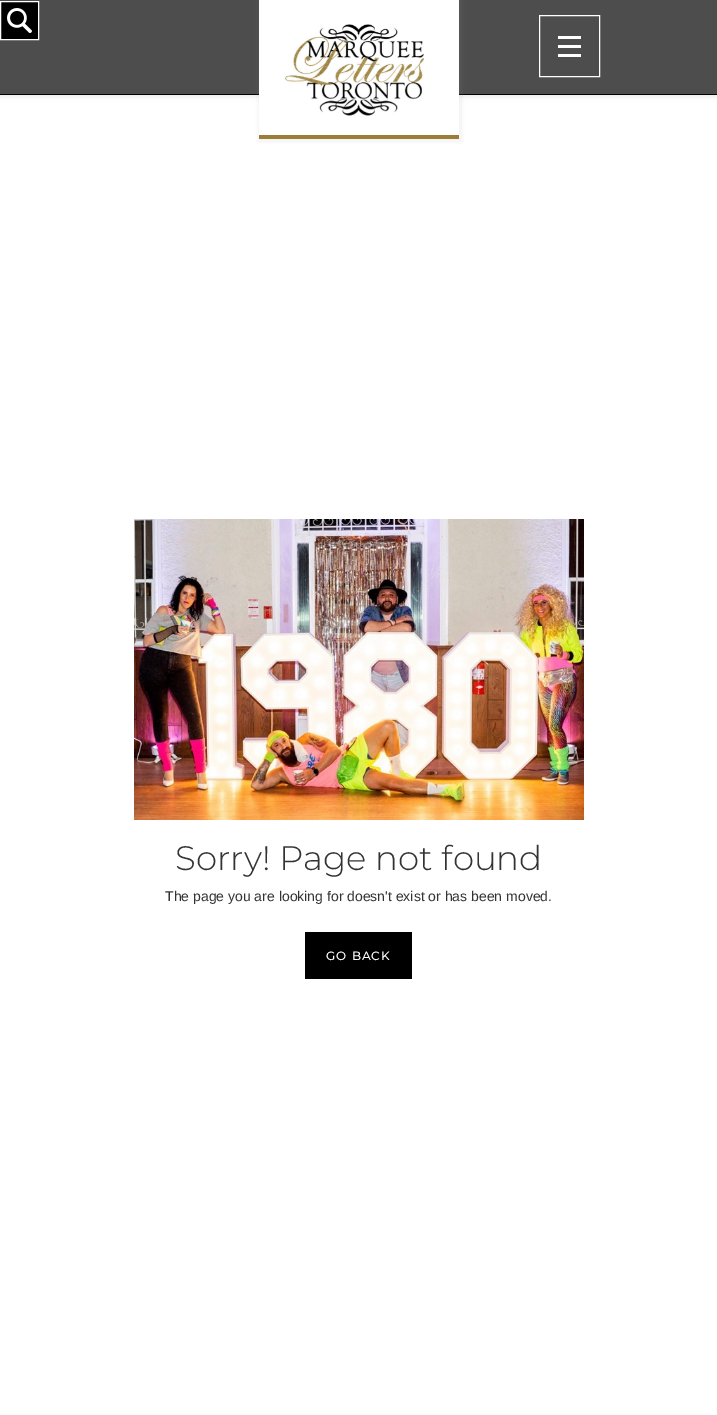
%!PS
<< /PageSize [717 1415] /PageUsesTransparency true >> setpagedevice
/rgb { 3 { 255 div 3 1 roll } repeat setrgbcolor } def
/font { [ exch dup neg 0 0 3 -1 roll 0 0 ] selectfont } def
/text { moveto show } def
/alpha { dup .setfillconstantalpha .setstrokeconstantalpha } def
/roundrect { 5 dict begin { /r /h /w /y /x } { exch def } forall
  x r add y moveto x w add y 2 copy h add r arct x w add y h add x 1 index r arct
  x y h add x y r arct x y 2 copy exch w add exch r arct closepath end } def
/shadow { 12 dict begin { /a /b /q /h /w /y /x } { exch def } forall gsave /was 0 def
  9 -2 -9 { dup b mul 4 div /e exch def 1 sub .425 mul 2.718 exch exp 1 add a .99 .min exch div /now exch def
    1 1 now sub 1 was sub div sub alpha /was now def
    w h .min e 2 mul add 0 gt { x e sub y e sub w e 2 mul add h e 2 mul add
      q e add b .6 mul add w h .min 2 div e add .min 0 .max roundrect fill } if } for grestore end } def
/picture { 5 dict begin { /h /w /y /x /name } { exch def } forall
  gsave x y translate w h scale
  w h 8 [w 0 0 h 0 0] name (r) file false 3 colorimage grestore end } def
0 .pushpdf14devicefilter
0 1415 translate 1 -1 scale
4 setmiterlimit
255 255 255 rgb
0 0 717 1415 rectfill
0 0 0 rgb
-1 -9 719 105 0 3 0.11 shadow
77 77 77 rgb
0 0 717 94 rectfill
0 0 0 rgb
0 94 717 1 rectfill
0.5 1.5 moveto 38 0 rlineto 0 38 rlineto -38 0 rlineto closepath gsave fill grestore
255 255 255 rgb
stroke
(img_01.rgb) 7 8 25 25 picture
138 138 138 rgb
258 -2 204 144 0 2.5 0.13 shadow
255 255 255 rgb
259 0 200 135 rectfill
156 125 56 rgb
259 135 200 4 rectfill
(img_02.rgb) 284 24 141 92 picture
255 255 255 rgb
539.5 15.5 60 61 rectstroke
(img_03.rgb) 558 36 23 21 picture
(img_04.rgb) 134 519 450 301 picture
0 0 0 rgb
305 932 107 47 rectfill
/Montserrat-Light 34 font
51 51 51 rgb
(Sorry! Page not found) 175 870 text
/LiberationSans-Regular 14 font
(The page you are looking for doesn't exist or has been moved.) 165 901 text
/Montserrat-Medium 12 font
255 255 255 rgb
326 960 moveto 1 0 (GO BACK) ashow
.poppdf14devicefilter showpage
